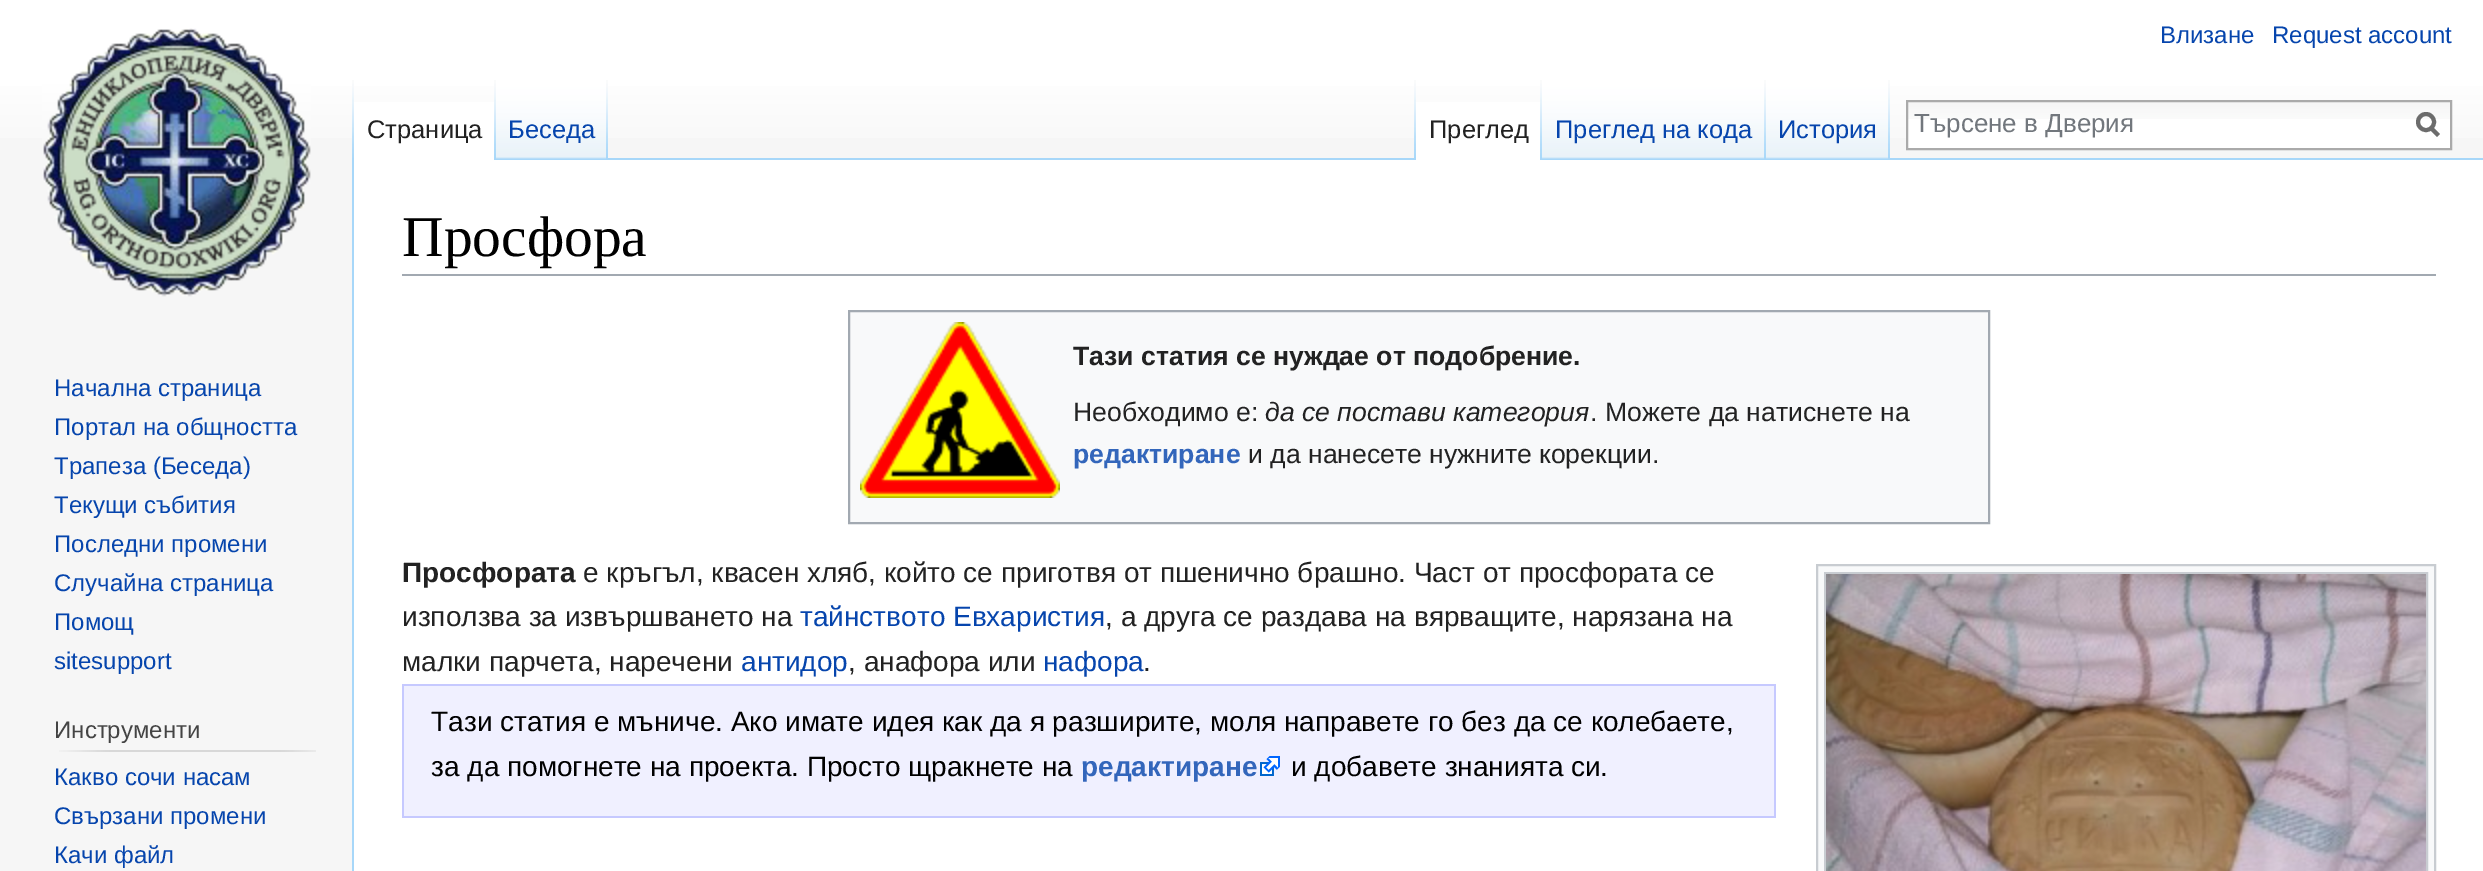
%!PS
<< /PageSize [2483 871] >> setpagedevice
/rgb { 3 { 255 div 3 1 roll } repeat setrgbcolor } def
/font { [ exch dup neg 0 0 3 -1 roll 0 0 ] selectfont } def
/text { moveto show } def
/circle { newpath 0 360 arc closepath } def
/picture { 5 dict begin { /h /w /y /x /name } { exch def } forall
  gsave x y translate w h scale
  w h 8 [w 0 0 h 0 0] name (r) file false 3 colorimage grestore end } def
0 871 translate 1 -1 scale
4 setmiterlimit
246 246 246 rgb
0 0 2483 871 rectfill
gsave 0 0 moveto 2483 0 rlineto 0 138 rlineto -2483 0 rlineto closepath clip newpath
<< /ShadingType 2 /ColorSpace /DeviceRGB /Coords [1242 0 1242 160] /Extend [true true] /Function << /FunctionType 3 /Domain [0 1] /Functions [<< /FunctionType 2 /Domain [0 1] /C0 [1 1 1] /C1 [1 1 1] /N 1 >> << /FunctionType 2 /Domain [0 1] /C0 [1 1 1] /C1 [0.965 0.965 0.965] /N 1 >>] /Bounds [0.5] /Encode [0 1 0 1] >> >> shfill grestore
(img_01.rgb) 352 80 2 78 picture
255 255 255 rgb
354 102 140 58 rectfill
(img_02.rgb) 494 80 2 80 picture
(img_03.rgb) 496 80 112 80 picture
(img_04.rgb) 606 80 2 79 picture
(img_01.rgb) 1414 80 2 78 picture
167 215 249 rgb
608 158 1875 2 rectfill
255 255 255 rgb
1416 102 124 58 rectfill
(img_02.rgb) 1540 80 2 80 picture
(img_05.rgb) 1542 80 224 80 picture
(img_04.rgb) 1764 80 2 79 picture
(img_06.rgb) 1766 80 124 80 picture
(img_04.rgb) 1888 80 2 79 picture
1908 119 542 29 rectfill
(img_07.rgb) 1908 102 542 17 picture
170 170 170 rgb
2 setlinewidth
1907 101 544 48 rectstroke
108 108 108 rgb
4 setlinewidth
2438.5 135.5 moveto -8 -8 rlineto stroke
2426 122 8 circle stroke
(img_08.rgb) 42 28 269 269 picture
(img_09.rgb) 59 750 257 2 picture
255 255 255 rgb
354 160 2129 711 rectfill
167 215 249 rgb
352 158 2 713 rectfill
162 169 177 rgb
402 274 2034 2 rectfill
248 249 250 rgb
849 311 moveto 1140 0 rlineto 0 212 rlineto -1140 0 rlineto closepath gsave fill grestore
162 169 177 rgb
2 setlinewidth
stroke
(img_10.rgb) 860 322 200 176 picture
248 249 250 rgb
1817 565 moveto 618 0 rlineto 0 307 rlineto -618 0 rlineto closepath gsave fill grestore
200 204 209 rgb
stroke
1825 573 602 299 rectstroke
(img_11.rgb) 1826 574 600 297 picture
240 240 255 rgb
404 686 1370 130 rectfill
198 201 255 rgb
402 684 1374 2 rectfill
1774 684 2 134 rectfill
402 816 1374 2 rectfill
402 684 2 134 rectfill
(img_12.rgb) 1260 756 20 20 picture
/LiberationSans-Regular 24 font
6 69 173 rgb
(Влизане) 2160 43 text
(Request account) 2272 43 text
/LiberationSans-Regular 25.5 font
34 34 34 rgb
(Страница) 367 138 text
6 69 173 rgb
(Беседа) 508 138 text
34 34 34 rgb
(Преглед) 1429 138 text
6 69 173 rgb
(Преглед на кода) 1555 138 text
(История) 1778 138 text
/LiberationSans-Regular 26 font
114 119 125 rgb
(Търсене в Дверия) 1914 132 text
/LiberationSans-Regular 24 font
6 69 173 rgb
(Начална страница) 54 396 text
(Портал на общността) 54 435 text
(Трапеза \(Беседа\)) 54 474 text
(Текущи събития) 54 513 text
(Последни промени) 54 552 text
(Случайна страница) 54 591 text
(Помощ) 54 630 text
(sitesupport) 54 669 text
68 68 68 rgb
(Инструменти) 54 738 text
6 69 173 rgb
(Какво сочи насам) 54 785 text
(Свързани промени) 54 824 text
(Качи файл) 54 863 text
/LiberationSerif-Regular 57.5 font
0 0 0 rgb
(Просфора) 402 256 text
/LiberationSans-Bold 26.6 font
34 34 34 rgb
(Тази статия се нуждае от подобрение.) 1073 365 text
/LiberationSans-Regular 26.6 font
(Необходимо е:) 1073 421 text
/LiberationSans-Italic 26.6 font
(да се постави категория) 1265 421 text
/LiberationSans-Regular 26.6 font
(. Можете да натиснете на) 1590 421 text
/LiberationSans-Bold 26.6 font
51 102 187 rgb
(редактиране) 1073 463 text
/LiberationSans-Regular 26.6 font
34 34 34 rgb
(и да нанесете нужните корекции.) 1248 463 text
/LiberationSans-Bold 28 font
(Просфората) 402 582 text
/LiberationSans-Regular 28 font
(е кръгъл, квасен хляб, който се приготвя от пшенично брашно. Част от просфората се) 583 582 text
(използва за извършването на) 402 626 text
6 69 173 rgb
(тайнството Евхаристия) 800 626 text
34 34 34 rgb
(, а друга се раздава на вярващите, нарязана на) 1105 626 text
(малки парчета, наречени) 402 671 text
6 69 173 rgb
(антидор) 741 671 text
34 34 34 rgb
(, анафора или) 848 671 text
6 69 173 rgb
(нафора) 1043 671 text
34 34 34 rgb
(.) 1143 671 text
0 0 0 rgb
(Тази статия е мъниче. Ако имате идея как да я разширите, моля направете го без да се колебаете,) 431 731 text
(за да помогнете на проекта. Просто щракнете на) 431 776 text
/LiberationSans-Bold 28 font
51 102 187 rgb
(редактиране) 1081 776 text
/LiberationSans-Regular 28 font
0 0 0 rgb
(и добавете знанията си.) 1291 776 text
showpage
